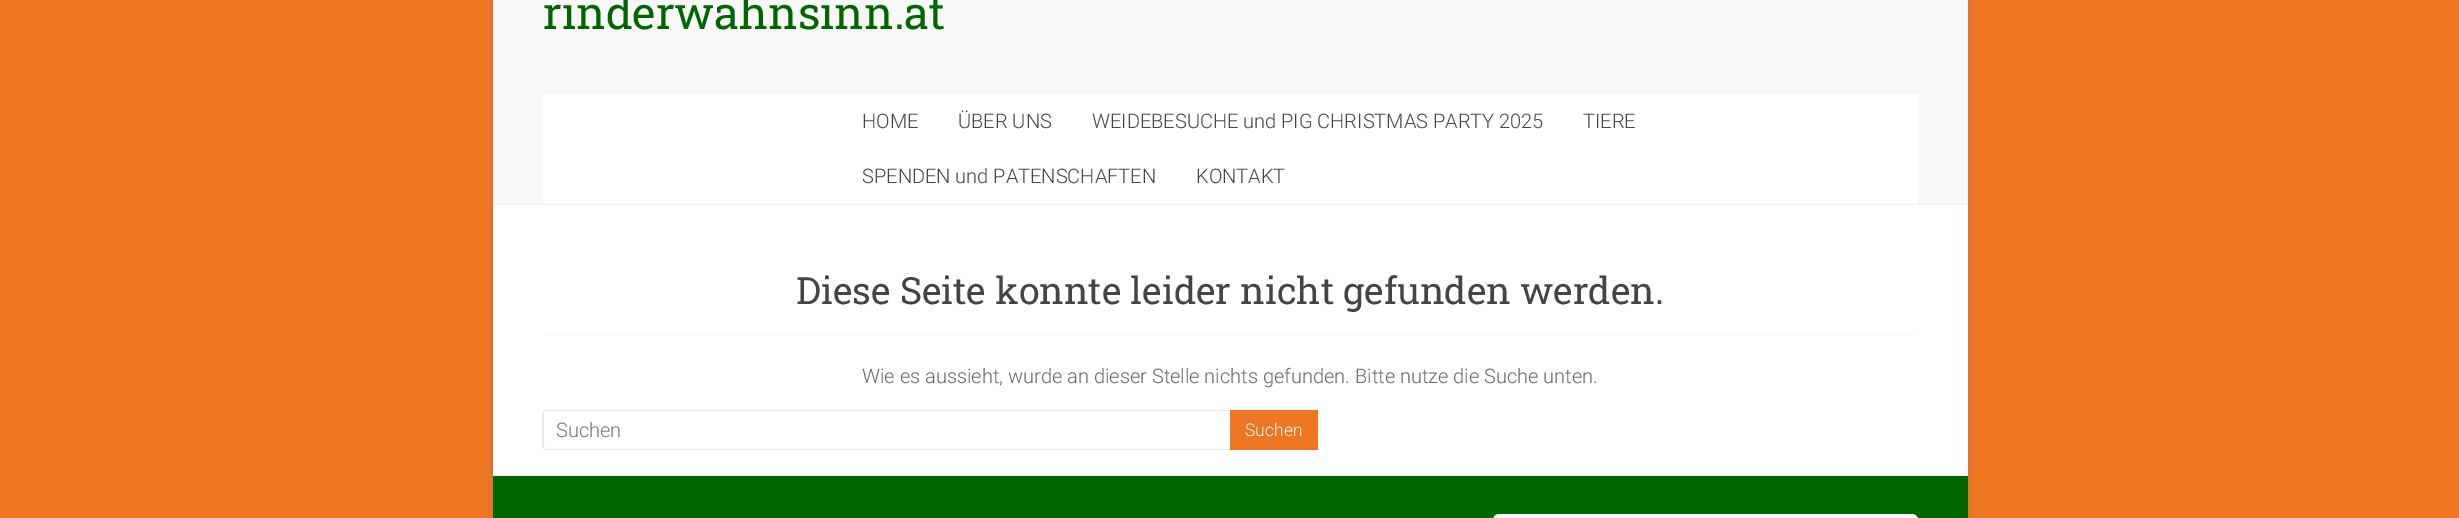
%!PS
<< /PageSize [2459 518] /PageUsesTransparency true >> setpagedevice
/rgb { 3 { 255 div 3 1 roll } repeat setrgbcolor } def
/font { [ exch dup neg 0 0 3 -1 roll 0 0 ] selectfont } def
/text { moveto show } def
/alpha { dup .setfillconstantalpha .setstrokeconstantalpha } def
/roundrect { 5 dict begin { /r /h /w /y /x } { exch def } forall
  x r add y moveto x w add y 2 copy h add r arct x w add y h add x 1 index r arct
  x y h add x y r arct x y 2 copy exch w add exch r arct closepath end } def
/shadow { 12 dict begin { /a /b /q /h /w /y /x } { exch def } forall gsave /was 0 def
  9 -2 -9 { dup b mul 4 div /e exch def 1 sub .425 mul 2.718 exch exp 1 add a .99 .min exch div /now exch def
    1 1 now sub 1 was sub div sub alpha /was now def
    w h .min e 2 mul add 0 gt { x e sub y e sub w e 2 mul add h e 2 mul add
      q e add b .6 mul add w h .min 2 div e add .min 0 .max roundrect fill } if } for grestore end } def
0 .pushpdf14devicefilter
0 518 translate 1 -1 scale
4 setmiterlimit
238 118 33 rgb
0 0 2459 518 rectfill
100 100 100 rgb
493 -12 1475 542 0 4 0.3 shadow
255 255 255 rgb
493 205 1475 270 rectfill
248 248 248 rgb
493 0 1475 204 rectfill
242 242 242 rgb
493 204 1475 1 rectfill
255 255 255 rgb
543 94 1375 110 rectfill
248 248 248 rgb
543 335 1375 1 rectfill
234 234 234 rgb
546 410 moveto 684 0 rlineto 0 40 rlineto -684 0 rlineto -2 0 -4 -2 -4 -4 rcurveto 0 -32 rlineto 0 -2 2 -4 4 -4 rcurveto closepath 546 411 moveto 684 0 rlineto 0 38 rlineto -684 0 rlineto -1 0 -2 -1 -2 -3 rcurveto 0 -32 rlineto 0 -2 1 -3 2 -3 rcurveto closepath eofill
238 118 33 rgb
1230 410 88 40 rectfill
0 102 0 rgb
493 476 1475 42 rectfill
242 242 242 rgb
493 475 1475 1 rectfill
248 248 248 rgb
1493 514 425 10 6 roundrect fill
/RobotoSlab-Regular 45 font
0 102 0 rgb
(rinderwahnsinn.at) 543 29 text
/Roboto-Light 20 font
68 68 68 rgb
(HOME) 862 128 text
(ÜBER UNS) 958 128 text
(WEIDEBESUCHE und PIG CHRISTMAS PARTY 2025) 1092 128 text
(TIERE) 1583 128 text
(SPENDEN und PATENSCHAFTEN) 862 183 text
(KONTAKT) 1196 183 text
/RobotoSlab-Regular 37.5 font
(Diese Seite konnte leider nicht gefunden werden.) 796 304 text
/Roboto-Light 20 font
102 102 102 rgb
(Wie es aussieht, wurde an dieser Stelle nichts gefunden. Bitte nutze die Suche unten.) 862 383 text
117 117 117 rgb
(Suchen) 556 437 text
/Roboto-Light 17.5 font
255 255 255 rgb
(Suchen) 1245 436 text
.poppdf14devicefilter showpage
